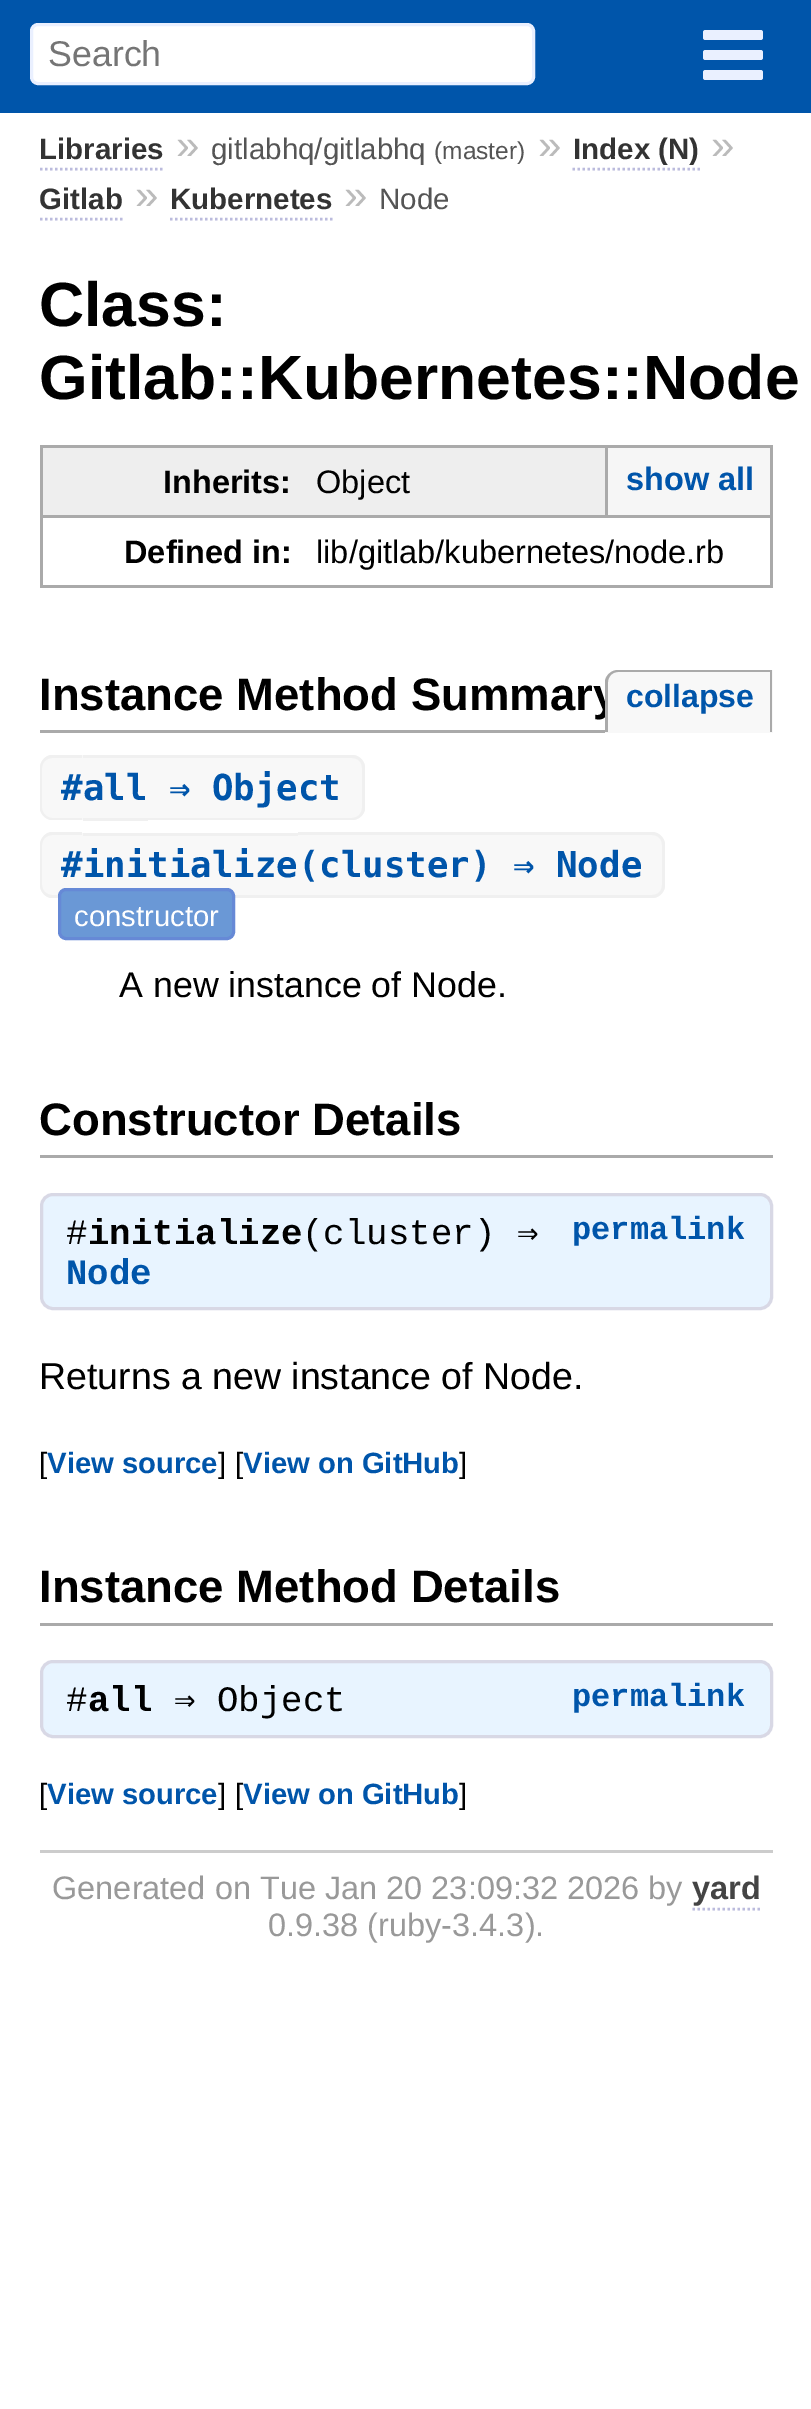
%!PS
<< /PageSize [811 2409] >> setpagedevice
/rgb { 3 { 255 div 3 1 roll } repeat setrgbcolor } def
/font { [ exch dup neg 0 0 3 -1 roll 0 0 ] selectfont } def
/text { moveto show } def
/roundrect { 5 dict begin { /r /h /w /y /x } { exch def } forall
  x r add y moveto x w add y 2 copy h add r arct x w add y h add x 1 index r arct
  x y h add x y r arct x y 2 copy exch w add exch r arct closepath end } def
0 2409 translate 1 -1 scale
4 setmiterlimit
255 255 255 rgb
0 0 811 2409 rectfill
0 85 170 rgb
0 0 811 113 rectfill
255 255 255 rgb
31.5 24.5 502 59 6.5 roundrect gsave fill grestore
234 240 255 rgb
3 setlinewidth
stroke
703 30 60 10 2.5 roundrect fill
703 50 60 10 2.5 roundrect fill
703 70 60 10 2.5 roundrect fill
187 187 221 rgb
2.5 setlinewidth
[2.5 2.5] 0 setdash
40 169 moveto 125 0 rlineto stroke
572.5 169 moveto 127.5 0 rlineto stroke
40 219 moveto 82.5 0 rlineto stroke
170 219 moveto 162.5 0 rlineto stroke
238 238 238 rgb
43 448 562 67 rectfill
170 170 170 rgb
40 445 733 3 rectfill
40 445 3 70 rectfill
40 515 733 3 rectfill
770 445 3 143 rectfill
246 246 246 rgb
608 448 162 67 rectfill
170 170 170 rgb
605 448 3 67 rectfill
40 585 278 3 rectfill
40 515 3 73 rectfill
318 585 455 3 rectfill
40 730 565 3 rectfill
248 248 248 rgb
53 755 moveto 30 0 rlineto 0 65 rlineto -30 0 rlineto -7 0 -13 -6 -13 -13 rcurveto 0 -39 rlineto 0 -7 6 -13 13 -13 rcurveto closepath fill
240 240 240 rgb
52 755 moveto 30 0 rlineto 0 65 rlineto -30 0 rlineto -6 0 -12 -6 -12 -12 rcurveto 0 -40 rlineto 0 -7 6 -13 12 -13 rcurveto closepath 52 758 moveto 30 0 rlineto 0 60 rlineto -30 0 rlineto -5 0 -10 -5 -10 -10 rcurveto 0 -40 rlineto 0 -6 5 -10 10 -10 rcurveto closepath eofill
248 248 248 rgb
83 758 65 60 rectfill
240 240 240 rgb
83 755 65 3 rectfill
83 818 65 3 rectfill
248 248 248 rgb
148 755 moveto 204 0 rlineto 7 0 13 6 13 13 rcurveto 0 39 rlineto 0 7 -6 13 -13 13 rcurveto -204 0 rlineto closepath fill
240 240 240 rgb
148 755 moveto 204 0 rlineto 7 0 13 6 13 13 rcurveto 0 40 rlineto 0 6 -6 12 -13 12 rcurveto -204 0 rlineto closepath 148 758 moveto 204 0 rlineto 6 0 10 4 10 10 rcurveto 0 40 rlineto 0 5 -4 10 -10 10 rcurveto -204 0 rlineto closepath eofill
248 248 248 rgb
53 833 moveto 30 0 rlineto 0 65 rlineto -30 0 rlineto -7 0 -13 -6 -13 -13 rcurveto 0 -39 rlineto 0 -7 6 -13 13 -13 rcurveto closepath fill
240 240 240 rgb
52 832 moveto 30 0 rlineto 0 66 rlineto -30 0 rlineto -6 0 -12 -6 -12 -13 rcurveto 0 -40 rlineto 0 -7 6 -13 12 -13 rcurveto closepath 52 835 moveto 30 0 rlineto 0 60 rlineto -30 0 rlineto -5 0 -10 -4 -10 -10 rcurveto 0 -40 rlineto 0 -6 5 -10 10 -10 rcurveto closepath eofill
248 248 248 rgb
83 836 215 59 rectfill
240 240 240 rgb
83 833 215 3 rectfill
234 895 64 3 rectfill
248 248 248 rgb
298 833 moveto 354 0 rlineto 7 0 13 6 13 13 rcurveto 0 39 rlineto 0 7 -6 13 -13 13 rcurveto -354 0 rlineto closepath fill
240 240 240 rgb
298 832 moveto 354 0 rlineto 7 0 13 6 13 13 rcurveto 0 40 rlineto 0 7 -6 13 -13 13 rcurveto -354 0 rlineto closepath 298 835 moveto 354 0 rlineto 6 0 10 4 10 10 rcurveto 0 40 rlineto 0 6 -4 10 -10 10 rcurveto -354 0 rlineto closepath eofill
106 152 214 rgb
59.5 889.5 174 49 6.5 roundrect gsave fill grestore
102 137 214 rgb
3 setlinewidth
[] 0 setdash
stroke
170 170 170 rgb
40 1155 733 3 rectfill
232 244 255 rgb
41.5 1194.5 730 114 11.5 roundrect gsave fill grestore
216 216 229 rgb
stroke
170 170 170 rgb
40 1623 733 3 rectfill
232 244 255 rgb
41.5 1661.5 730 75 11.5 roundrect gsave fill grestore
216 216 229 rgb
stroke
204 204 204 rgb
40 1850 733 3 rectfill
187 187 221 rgb
2.5 setlinewidth
[2.5 2.5] 0 setdash
692.5 1909 moveto 67.5 0 rlineto stroke
/LiberationSans-Regular 35.75 font
117 117 117 rgb
(Search) 48 66 text
/LiberationSans-Bold 29.5 font
51 51 51 rgb
(Libraries) 39 159 text
/LiberationSans-Regular 42 font
187 187 187 rgb
(») 176 159 text
/LiberationSans-Regular 29.5 font
85 85 85 rgb
(gitlabhq/gitlabhq) 211 159 text
/LiberationSans-Regular 24.5 font
(\(master\)) 434 159 text
/LiberationSans-Regular 42 font
187 187 187 rgb
(») 538 159 text
/LiberationSans-Bold 29.5 font
51 51 51 rgb
(Index \(N\)) 573 159 text
/LiberationSans-Regular 42 font
187 187 187 rgb
(») 711 159 text
/LiberationSans-Bold 29.5 font
51 51 51 rgb
(Gitlab) 39 209 text
/LiberationSans-Regular 42 font
187 187 187 rgb
(») 135 209 text
/LiberationSans-Bold 29.5 font
51 51 51 rgb
(Kubernetes) 170 209 text
/LiberationSans-Regular 42 font
187 187 187 rgb
(») 344 209 text
/LiberationSans-Regular 29.5 font
85 85 85 rgb
(Node) 379 209 text
/LiberationSans-Bold 62.5 font
0 0 0 rgb
(Class:) 39 326 text
(Gitlab::Kubernetes::Node) 39 399 text
/LiberationSans-Bold 32.5 font
(Inherits:) 163 493 text
/LiberationSans-Regular 32.5 font
(Object) 316 493 text
/LiberationSans-Bold 32.5 font
0 85 170 rgb
(show all) 626 490 text
0 0 0 rgb
(Defined in:) 124 563 text
/LiberationSans-Regular 32.5 font
(lib/gitlab/kubernetes/node.rb) 316 563 text
/LiberationSans-Bold 45.5 font
(Instance Method Summary) 39 710 text
248 248 248 rgb
618 670 moveto 155 0 rlineto 0 63 rlineto -168 0 rlineto 0 -50 rlineto 0 -7 6 -13 13 -13 rcurveto closepath fill
170 170 170 rgb
618 670 moveto 154 0 rlineto 0 62 rlineto -167 0 rlineto 0 -50 rlineto 0 -6 6 -12 13 -12 rcurveto closepath 618 672 moveto 152 0 rlineto 0 60 rlineto -162 0 rlineto 0 -50 rlineto 0 -5 4 -10 10 -10 rcurveto closepath eofill
/LiberationSans-Bold 32 font
0 85 170 rgb
(collapse) 626 707 text
/DejaVuSansMono-Bold 35.75 font
(#all ⇒ Object) 61 800 text
(#initialize\(cluster\) ⇒ Node) 61 877 text
/LiberationSans-Regular 29.25 font
255 255 255 rgb
(constructor) 74 926 text
/LiberationSans-Regular 35.75 font
0 0 0 rgb
(A new instance of Node.) 119 997 text
/LiberationSans-Bold 45.5 font
(Constructor Details) 39 1135 text
/LiberationMono-Regular 35.75 font
(#) 66 1244 text
/LiberationMono-Bold 35.75 font
(initialize) 88 1244 text
/LiberationMono-Regular 35.75 font
(\(cluster\)) 302 1244 text
/DejaVuSansMono-Regular 35.75 font
(⇒) 517 1244 text
/LiberationMono-Bold 32 font
0 85 170 rgb
(permalink) 572 1239 text
/LiberationMono-Bold 35.75 font
(Node) 66 1284 text
/LiberationSans-Regular 37.5 font
0 0 0 rgb
(Returns a new instance of Node.) 39 1389 text
/LiberationSans-Regular 29.25 font
([) 39 1473 text
/LiberationSans-Bold 29.25 font
0 85 170 rgb
(View source) 47 1473 text
/LiberationSans-Regular 29.25 font
0 0 0 rgb
(]) 218 1473 text
([) 235 1473 text
/LiberationSans-Bold 29.25 font
0 85 170 rgb
(View on GitHub) 243 1473 text
/LiberationSans-Regular 29.25 font
0 0 0 rgb
(]) 459 1473 text
/LiberationSans-Bold 45.5 font
(Instance Method Details) 39 1602 text
/LiberationMono-Regular 35.75 font
(#) 66 1711 text
/LiberationMono-Bold 35.75 font
(all) 88 1711 text
/DejaVuSansMono-Regular 35.75 font
(⇒) 174 1711 text
/LiberationMono-Regular 35.75 font
(Object) 217 1711 text
/LiberationMono-Bold 32 font
0 85 170 rgb
(permalink) 572 1706 text
/LiberationSans-Regular 29.25 font
0 0 0 rgb
([) 39 1804 text
/LiberationSans-Bold 29.25 font
0 85 170 rgb
(View source) 47 1804 text
/LiberationSans-Regular 29.25 font
0 0 0 rgb
(]) 218 1804 text
([) 235 1804 text
/LiberationSans-Bold 29.25 font
0 85 170 rgb
(View on GitHub) 243 1804 text
/LiberationSans-Regular 29.25 font
0 0 0 rgb
(]) 459 1804 text
/LiberationSans-Regular 32.5 font
153 153 153 rgb
(Generated on Tue Jan 20 23:09:32 2026 by) 52 1899 text
/LiberationSans-Bold 32.5 font
68 68 68 rgb
(yard) 692 1899 text
/LiberationSans-Regular 32.5 font
153 153 153 rgb
(0.9.38 \(ruby-3.4.3\).) 268 1936 text
showpage
